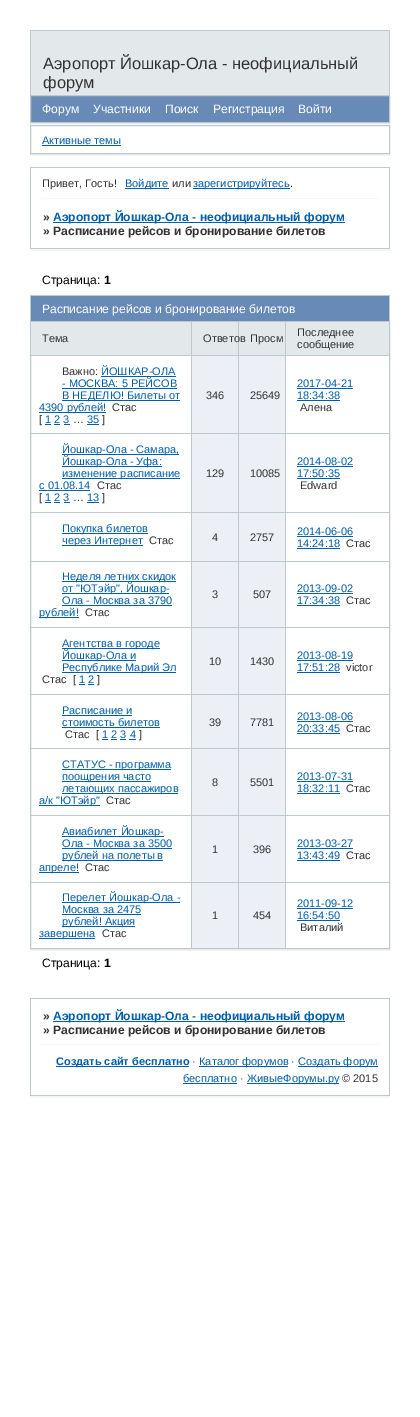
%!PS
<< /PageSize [420 1417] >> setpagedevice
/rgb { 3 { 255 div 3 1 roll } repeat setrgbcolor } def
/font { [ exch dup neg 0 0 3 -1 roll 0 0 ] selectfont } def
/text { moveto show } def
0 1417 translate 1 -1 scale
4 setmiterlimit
255 255 255 rgb
0 0 420 1417 rectfill
227 232 235 rgb
31 31 358 64 rectfill
190 200 206 rgb
30 30 360 1 rectfill
389 30 1 65 rectfill
30 30 1 65 rectfill
245 245 245 rgb
30 123 360 2 rectfill
103 138 183 rgb
30.5 95.5 moveto 359 0 rlineto 0 27 rlineto -359 0 rlineto closepath gsave fill grestore
190 200 206 rgb
stroke
245 245 245 rgb
30 154 360 2 rectfill
190 200 206 rgb
30.5 125.5 359 28 rectstroke
0 94 171 rgb
42 145 79 1 rectfill
190 200 206 rgb
30 167 360 1 rectfill
389 167 1 82 rectfill
30 167 1 33 rectfill
0 94 171 rgb
125 188 44 1 rectfill
193 188 97 1 rectfill
247 247 247 rgb
41 198 338 1 rectfill
245 245 245 rgb
30 249 360 2 rectfill
190 200 206 rgb
30 248 360 1 rectfill
30 198 1 51 rectfill
0 94 171 rgb
53 222 292 1 rectfill
103 138 183 rgb
31 296 358 25 rectfill
190 200 206 rgb
30 295 360 1 rectfill
389 295 1 26 rectfill
30 295 1 26 rectfill
245 245 245 rgb
30 949 360 2 rectfill
190 200 206 rgb
30.5 321.5 359 627 rectstroke
227 232 235 rgb
31 322 160 33 rectfill
192 322 46 33 rectfill
190 200 206 rgb
191 322 1 33 rectfill
227 232 235 rgb
239 322 46 33 rectfill
190 200 206 rgb
238 322 1 33 rectfill
227 232 235 rgb
286 322 103 33 rectfill
190 200 206 rgb
31 355 358 1 rectfill
31 433 358 1 rectfill
31 512 358 1 rectfill
31 561 358 1 rectfill
31 627 358 1 rectfill
31 694 358 1 rectfill
31 748 358 1 rectfill
285 322 1 493 rectfill
0 94 171 rgb
101 376 75 1 rectfill
62 388 115 1 rectfill
62 400 118 1 rectfill
39 412 67 1 rectfill
45 424 6 1 rectfill
54 424 6 1 rectfill
64 424 6 1 rectfill
87 424 12 1 rectfill
236 240 246 rgb
192 356 46 77 rectfill
190 200 206 rgb
191 355 1 78 rectfill
236 240 246 rgb
239 356 46 77 rectfill
190 200 206 rgb
238 355 1 78 rectfill
0 94 171 rgb
297 388 56 1 rectfill
297 400 43 1 rectfill
62 454 117 1 rectfill
62 466 100 1 rectfill
62 478 118 1 rectfill
39 490 51 1 rectfill
45 502 6 1 rectfill
54 502 6 1 rectfill
64 502 6 1 rectfill
87 502 12 1 rectfill
236 240 246 rgb
192 434 46 78 rectfill
190 200 206 rgb
191 433 1 79 rectfill
236 240 246 rgb
239 434 46 78 rectfill
190 200 206 rgb
238 433 1 79 rectfill
0 94 171 rgb
297 466 56 1 rectfill
297 478 43 1 rectfill
62 533 86 1 rectfill
62 545 81 1 rectfill
236 240 246 rgb
192 513 46 48 rectfill
190 200 206 rgb
191 512 1 49 rectfill
236 240 246 rgb
239 513 46 48 rectfill
190 200 206 rgb
238 512 1 49 rectfill
0 94 171 rgb
297 536 56 1 rectfill
297 548 43 1 rectfill
62 581 114 1 rectfill
62 593 107 1 rectfill
62 605 110 1 rectfill
39 617 40 1 rectfill
236 240 246 rgb
192 562 46 65 rectfill
190 200 206 rgb
191 561 1 66 rectfill
236 240 246 rgb
239 562 46 65 rectfill
190 200 206 rgb
238 561 1 66 rectfill
0 94 171 rgb
297 593 56 1 rectfill
297 605 43 1 rectfill
62 648 98 1 rectfill
62 660 74 1 rectfill
62 672 114 1 rectfill
79 684 6 1 rectfill
88 684 6 1 rectfill
236 240 246 rgb
192 628 46 66 rectfill
190 200 206 rgb
191 627 1 67 rectfill
236 240 246 rgb
239 628 46 66 rectfill
190 200 206 rgb
238 627 1 67 rectfill
0 94 171 rgb
297 660 56 1 rectfill
297 672 43 1 rectfill
62 715 70 1 rectfill
62 727 98 1 rectfill
102 739 6 1 rectfill
111 739 6 1 rectfill
120 739 6 1 rectfill
129 739 7 1 rectfill
236 240 246 rgb
192 695 46 53 rectfill
190 200 206 rgb
191 694 1 54 rectfill
236 240 246 rgb
239 695 46 53 rectfill
190 200 206 rgb
238 694 1 54 rectfill
0 94 171 rgb
297 721 56 1 rectfill
297 733 43 1 rectfill
62 769 109 1 rectfill
62 781 89 1 rectfill
62 793 116 1 rectfill
39 805 61 1 rectfill
236 240 246 rgb
192 749 46 66 rectfill
190 200 206 rgb
191 748 1 67 rectfill
236 240 246 rgb
239 749 46 66 rectfill
190 200 206 rgb
238 748 1 67 rectfill
0 94 171 rgb
297 781 56 1 rectfill
297 793 43 1 rectfill
62 836 102 1 rectfill
62 848 110 1 rectfill
62 860 101 1 rectfill
39 872 40 1 rectfill
236 240 246 rgb
192 816 46 66 rectfill
190 200 206 rgb
31 815 254 1 rectfill
191 815 1 67 rectfill
236 240 246 rgb
239 816 46 66 rectfill
190 200 206 rgb
238 815 1 67 rectfill
285 815 104 1 rectfill
285 815 1 67 rectfill
0 94 171 rgb
297 848 56 1 rectfill
297 860 43 1 rectfill
190 200 206 rgb
31 882 160 1 rectfill
0 94 171 rgb
62 902 118 1 rectfill
62 914 79 1 rectfill
62 926 73 1 rectfill
39 938 56 1 rectfill
236 240 246 rgb
192 883 46 65 rectfill
190 200 206 rgb
191 882 94 1 rectfill
191 882 1 66 rectfill
236 240 246 rgb
239 883 46 65 rectfill
190 200 206 rgb
238 882 1 66 rectfill
285 882 104 1 rectfill
285 882 1 66 rectfill
0 94 171 rgb
297 908 56 1 rectfill
297 920 43 1 rectfill
190 200 206 rgb
30 998 360 1 rectfill
389 1044 1 52 rectfill
389 998 1 48 rectfill
30 1095 360 1 rectfill
30 1044 1 52 rectfill
30 998 1 48 rectfill
0 94 171 rgb
53 1021 292 1 rectfill
247 247 247 rgb
41 1044 338 1 rectfill
245 245 245 rgb
30 1096 360 2 rectfill
0 94 171 rgb
56 1066 133 1 rectfill
199 1066 89 1 rectfill
298 1066 80 1 rectfill
183 1083 54 1 rectfill
247 1083 92 1 rectfill
/LiberationSans-Regular 16.5 font
51 51 51 rgb
(Аэропорт Йошкар-Ола - неофициальный) 43 69 text
(форум) 43 88 text
/LiberationSans-Regular 12.1 font
255 255 255 rgb
(Форум) 42 113 text
(Участники) 93 113 text
(Поиск) 165 113 text
(Регистрация) 213 113 text
(Войти) 298 113 text
/LiberationSans-Regular 11 font
0 94 171 rgb
(Активные темы) 42 144 text
51 51 51 rgb
(Привет, Гость!) 42 187 text
0 94 171 rgb
(Войдите) 125 187 text
51 51 51 rgb
(или) 172 187 text
0 94 171 rgb
(зарегистрируйтесь) 193 187 text
51 51 51 rgb
(.) 290 187 text
/LiberationSans-Bold 12.1 font
(») 43 221 text
0 94 171 rgb
(Аэропорт Йошкар-Ола - неофициальный форум) 53 221 text
51 51 51 rgb
(» Расписание рейсов и бронирование билетов) 43 235 text
/LiberationSans-Regular 12.1 font
0 0 0 rgb
(Страница:) 42 284 text
/LiberationSans-Bold 12.1 font
(1) 104 284 text
/LiberationSans-Regular 12.1 font
255 255 255 rgb
(Расписание рейсов и бронирование билетов) 42 313 text
/LiberationSans-Regular 11 font
51 51 51 rgb
(Тема) 42 342 text
(Ответов) 203 342 text
(Просм) 250 342 text
(Последнее) 297 336 text
(сообщение) 297 348 text
(Важно:) 62 375 text
0 94 171 rgb
(ЙОШКАР-ОЛА) 101 375 text
(- МОСКВА: 5 РЕЙСОВ) 62 387 text
(В НЕДЕЛЮ! Билеты от) 62 399 text
(4390 рублей!) 39 411 text
51 51 51 rgb
(Стас) 112 411 text
([) 39 423 text
0 94 171 rgb
(1 2 3) 45 423 text
51 51 51 rgb
(…) 73 423 text
0 94 171 rgb
(35) 87 423 text
51 51 51 rgb
(]) 102 423 text
(346) 206 399 text
(25649) 250 399 text
0 94 171 rgb
(2017-04-21) 297 387 text
(18:34:38) 297 399 text
51 51 51 rgb
(Алена) 300 411 text
0 94 171 rgb
(Йошкар-Ола - Самара,) 62 453 text
(Йошкар-Ола - Уфа:) 62 465 text
(изменение расписание) 62 477 text
(с 01.08.14) 39 489 text
51 51 51 rgb
(Стас) 97 489 text
([) 39 501 text
0 94 171 rgb
(1 2 3) 45 501 text
51 51 51 rgb
(…) 73 501 text
0 94 171 rgb
(13) 87 501 text
51 51 51 rgb
(]) 102 501 text
(129) 206 477 text
(10085) 250 477 text
0 94 171 rgb
(2014-08-02) 297 465 text
(17:50:35) 297 477 text
51 51 51 rgb
(Edward) 300 489 text
0 94 171 rgb
(Покупка билетов) 62 532 text
(через Интернет) 62 544 text
51 51 51 rgb
(Стас) 149 544 text
(4) 212 541 text
(2757) 250 541 text
0 94 171 rgb
(2014-06-06) 297 535 text
(14:24:18) 297 547 text
51 51 51 rgb
(Стас) 346 547 text
0 94 171 rgb
(Неделя летних скидок) 62 580 text
(от "ЮТэйр", Йошкар-) 62 592 text
(Ола - Москва за 3790) 62 604 text
(рублей!) 39 616 text
51 51 51 rgb
(Стас) 85 616 text
(3) 212 598 text
(507) 253 598 text
0 94 171 rgb
(2013-09-02) 297 592 text
(17:34:38) 297 604 text
51 51 51 rgb
(Стас) 346 604 text
0 94 171 rgb
(Агентства в городе) 62 647 text
(Йошкар-Ола и) 62 659 text
(Республике Марий Эл) 62 671 text
51 51 51 rgb
(Стас) 42 683 text
([) 73 683 text
0 94 171 rgb
(1 2) 79 683 text
51 51 51 rgb
(]) 97 683 text
(10) 209 665 text
(1430) 250 665 text
0 94 171 rgb
(2013-08-19) 297 659 text
(17:51:28) 297 671 text
51 51 51 rgb
(victor) 346 671 text
0 94 171 rgb
(Расписание и) 62 714 text
(стоимость билетов) 62 726 text
51 51 51 rgb
(Стас) 65 738 text
([) 96 738 text
0 94 171 rgb
(1 2 3 4) 102 738 text
51 51 51 rgb
(]) 139 738 text
(39) 209 726 text
(7781) 250 726 text
0 94 171 rgb
(2013-08-06) 297 720 text
(20:33:45) 297 732 text
51 51 51 rgb
(Стас) 346 732 text
0 94 171 rgb
(СТАТУС - программа) 62 768 text
(поощрения часто) 62 780 text
(летающих пассажиров) 62 792 text
(а/к "ЮТэйр") 39 804 text
51 51 51 rgb
(Стас) 106 804 text
(8) 212 786 text
(5501) 250 786 text
0 94 171 rgb
(2013-07-31) 297 780 text
(18:32:11) 297 792 text
51 51 51 rgb
(Стас) 346 792 text
0 94 171 rgb
(Авиабилет Йошкар-) 62 835 text
(Ола - Москва за 3500) 62 847 text
(рублей на полеты в) 62 859 text
(апреле!) 39 871 text
51 51 51 rgb
(Стас) 85 871 text
(1) 212 853 text
(396) 253 853 text
0 94 171 rgb
(2013-03-27) 297 847 text
(13:43:49) 297 859 text
51 51 51 rgb
(Стас) 346 859 text
0 94 171 rgb
(Перелет Йошкар-Ола -) 62 901 text
(Москва за 2475) 62 913 text
(рублей! Акция) 62 925 text
(завершена) 39 937 text
51 51 51 rgb
(Стас) 102 937 text
(1) 212 919 text
(454) 253 919 text
0 94 171 rgb
(2011-09-12) 297 907 text
(16:54:50) 297 919 text
51 51 51 rgb
(Виталий) 300 931 text
/LiberationSans-Regular 12.1 font
0 0 0 rgb
(Страница:) 42 967 text
/LiberationSans-Bold 12.1 font
(1) 104 967 text
51 51 51 rgb
(») 43 1020 text
0 94 171 rgb
(Аэропорт Йошкар-Ола - неофициальный форум) 53 1020 text
51 51 51 rgb
(» Расписание рейсов и бронирование билетов) 43 1034 text
/LiberationSans-Bold 11 font
0 94 171 rgb
(Создать сайт бесплатно) 56 1065 text
/LiberationSans-Regular 11 font
51 51 51 rgb
(·) 192 1065 text
0 94 171 rgb
(Каталог форумов) 199 1065 text
51 51 51 rgb
(·) 291 1065 text
0 94 171 rgb
(Создать форум) 298 1065 text
(бесплатно) 183 1082 text
51 51 51 rgb
(·) 240 1082 text
0 94 171 rgb
(ЖивыеФорумы.ру) 247 1082 text
51 51 51 rgb
(© 2015) 342 1082 text
showpage
